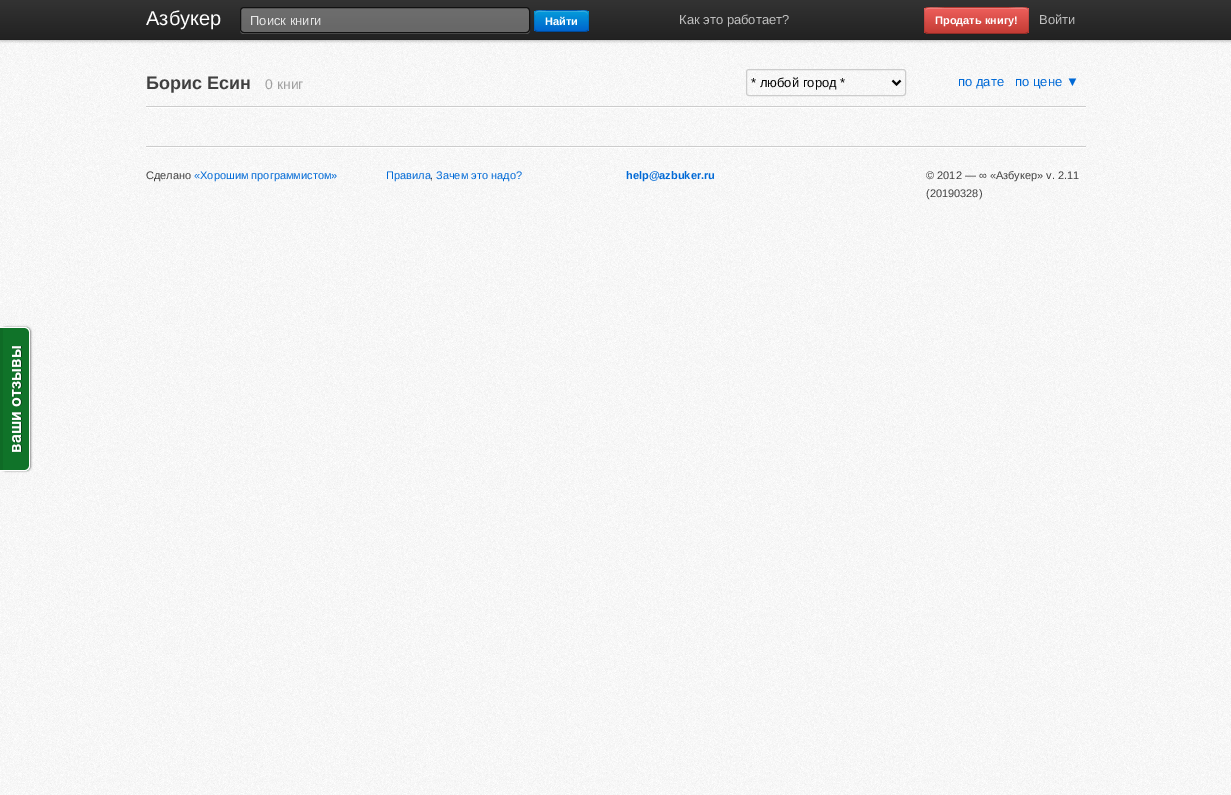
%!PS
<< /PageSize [1231 795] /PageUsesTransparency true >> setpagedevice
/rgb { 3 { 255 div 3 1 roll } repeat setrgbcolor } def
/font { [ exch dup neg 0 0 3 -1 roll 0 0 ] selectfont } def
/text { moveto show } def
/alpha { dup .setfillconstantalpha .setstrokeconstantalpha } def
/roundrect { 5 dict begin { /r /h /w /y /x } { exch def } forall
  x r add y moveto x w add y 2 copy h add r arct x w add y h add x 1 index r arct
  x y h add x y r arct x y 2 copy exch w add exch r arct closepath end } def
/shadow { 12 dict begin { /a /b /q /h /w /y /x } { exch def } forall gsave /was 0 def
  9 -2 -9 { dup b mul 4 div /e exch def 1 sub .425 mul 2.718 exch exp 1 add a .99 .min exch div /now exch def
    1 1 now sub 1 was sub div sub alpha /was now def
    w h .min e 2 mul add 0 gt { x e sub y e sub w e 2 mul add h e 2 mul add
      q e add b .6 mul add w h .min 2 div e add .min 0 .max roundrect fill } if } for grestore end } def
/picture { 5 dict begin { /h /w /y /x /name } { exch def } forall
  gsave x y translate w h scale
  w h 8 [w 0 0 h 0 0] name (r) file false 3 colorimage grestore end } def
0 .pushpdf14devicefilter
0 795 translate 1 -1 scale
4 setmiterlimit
255 255 255 rgb
0 0 1231 795 rectfill
(img_01.rgb) 0 40 1231 755 picture
0 0 0 rgb
0 1 1231 40 0 1.5 0.25 shadow
gsave 0 0 moveto 1231 0 rlineto 0 39 rlineto -1231 0 rlineto closepath clip newpath
<< /ShadingType 2 /ColorSpace /DeviceRGB /Coords [616 0 616 40] /Extend [true true] /Function << /FunctionType 2 /Domain [0 1] /C0 [0.2 0.2 0.2] /C1 [0.133 0.133 0.133] /N 1 >> >> shfill grestore
31 31 31 rgb
0 39 1231 1 rectfill
92 92 92 rgb
240 29 moveto 0 3 1 5 4 5 rcurveto 282 0 rlineto 3 0 4 -2 4 -5 rcurveto 0 2 -2 4 -4 4 rcurveto -282 0 rlineto -2 0 -4 -2 -4 -4 rcurveto closepath fill
0.3 alpha
255 255 255 rgb
240.5 7.5 289 25 3.5 roundrect fill
1 alpha
17 17 17 rgb
240.5 7.5 289 25 3.5 roundrect stroke
0 100 205 rgb
534 10 55 22 4 roundrect fill
gsave
534 10 55 22 4 roundrect clip newpath
gsave 534 11 moveto 55 0 rlineto 0 20 rlineto -55 0 rlineto closepath clip newpath
<< /ShadingType 2 /ColorSpace /DeviceRGB /Coords [562 11 562 31] /Extend [true true] /Function << /FunctionType 2 /Domain [0 1] /C0 [0.016 0.612 0.859] /C1 [0 0.392 0.804] /N 1 >> >> shfill grestore
grestore
54 175 226 rgb
538 12 moveto 47 0 rlineto 2 0 3 1 3 3 rcurveto 0 -6 -6 -4 -11 -4 rcurveto -31 0 rlineto -5 0 -11 -2 -11 4 rcurveto 0 -2 1 -3 3 -3 rcurveto closepath fill
0.25 alpha
0 0 0 rgb
587.5 30.5 moveto -0.5 0.5 -1.5 1 -2.5 1 rcurveto -47 0 rlineto -1 0 -2 -0.5 -2.5 -1 rcurveto stroke
0.1 alpha
535.5 30.5 moveto -2 -2 -1 -7 -1 -9.5 rcurveto 0 -11.5 -0.5 -10.5 11.5 -10.5 rcurveto 31 0 rlineto 12 0 11.5 -1 11.5 10.5 rcurveto 0 2.5 1 7.5 -1 9.5 rcurveto stroke
1 alpha
196 60 53 rgb
924 7 105 27 4 roundrect fill
gsave
924 7 105 27 4 roundrect clip newpath
gsave 924 8 moveto 105 0 rlineto 0 25 rlineto -105 0 rlineto closepath clip newpath
<< /ShadingType 2 /ColorSpace /DeviceRGB /Coords [977 8 977 33] /Extend [true true] /Function << /FunctionType 2 /Domain [0 1] /C0 [0.933 0.373 0.357] /C1 [0.769 0.235 0.208] /N 1 >> >> shfill grestore
grestore
0.2 alpha
255 255 255 rgb
928 9 moveto 97 0 rlineto 2 0 3 1 3 3 rcurveto 0 -8 -16 -4 -19 -4 rcurveto -65 0 rlineto -3 0 -19 -4 -19 4 rcurveto 0 -2 1 -3 3 -3 rcurveto closepath fill
0.25 alpha
0 0 0 rgb
1027.5 32.5 moveto -2 1 rlineto -81.5 0 rlineto -16 0 rlineto -2.5 -1 rlineto stroke
0.1 alpha
925.5 32.5 moveto -2 -2 -1 -6.5 -1 -9 rcurveto 0 -20 -2.5 -16 19.5 -16 rcurveto 65 0 rlineto 22 0 19.5 -4 19.5 16 rcurveto 0 2.5 1 7 -1 9 rcurveto stroke
1 alpha
204 204 204 rgb
746.5 69.5 159 26 2.5 roundrect stroke
6 6 6 rgb
2 setlinewidth
892.5 80.5 moveto 4 4 rlineto 4 -4 rlineto stroke
255 255 255 rgb
146 107 940 1 rectfill
204 204 204 rgb
146 106 940 1 rectfill
255 255 255 rgb
146 147 940 1 rectfill
204 204 204 rgb
146 146 940 1 rectfill
136 136 136 rgb
1 327 30 144 5 1 1 shadow
16 115 41 rgb
0 327 moveto 25 0 rlineto 3 0 5 2 5 5 rcurveto 0 134 rlineto 0 3 -2 5 -5 5 rcurveto -25 0 rlineto closepath fill
15 107 38 rgb
0 327 3 144 rectfill
255 255 255 rgb
0 327 moveto 25 0 rlineto 3 0 5 2 5 5 rcurveto 0 134 rlineto 0 3 -2 5 -5 5 rcurveto -25 0 rlineto closepath 0 328 moveto 25 0 rlineto 2 0 4 2 4 4 rcurveto 0 134 rlineto 0 2 -2 4 -4 4 rcurveto -25 0 rlineto closepath eofill
(img_02.rgb) 12 346 10 106 picture
/LiberationSans-Regular 20 font
(Азбукер) 146 25 text
/LiberationSans-Regular 13 font
230 230 230 rgb
(Поиск книги) 250 25 text
/LiberationSans-Bold 11 font
255 255 255 rgb
(Найти) 545 25 text
/LiberationSans-Regular 13 font
191 191 191 rgb
(Как это работает?) 679 24 text
/LiberationSans-Bold 11 font
255 255 255 rgb
(Продать книгу!) 935 24 text
/LiberationSans-Regular 13 font
191 191 191 rgb
(Войти) 1039 24 text
/LiberationSans-Bold 18 font
64 64 64 rgb
(Борис Есин) 146 89 text
/LiberationSans-Regular 14 font
160 160 160 rgb
(0 книг) 265 89 text
/LiberationSans-Regular 13 font
6 6 6 rgb
(* любой город *) 751 87 text
0 105 214 rgb
(по дате) 958 86 text
(по цене ▼) 1015 86 text
/LiberationSans-Regular 11 font
64 64 64 rgb
(Сделано) 146 179 text
0 105 214 rgb
(«Хорошим программистом») 194 179 text
(Правила) 386 179 text
64 64 64 rgb
(,) 430 179 text
0 105 214 rgb
(Зачем это надо?) 436 179 text
/LiberationSans-Bold 11 font
(help@azbuker.ru) 626 179 text
/LiberationSans-Regular 11 font
64 64 64 rgb
(© 2012 — ∞ «Азбукер» v. 2.11) 926 179 text
(\(20190328\)) 926 197 text
.poppdf14devicefilter showpage
